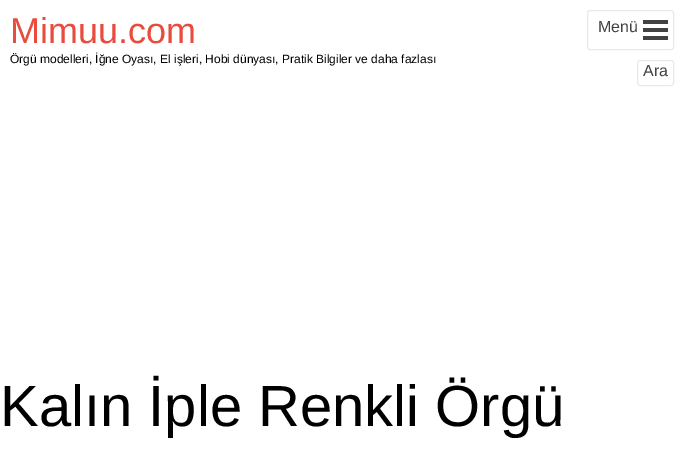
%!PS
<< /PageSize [684 475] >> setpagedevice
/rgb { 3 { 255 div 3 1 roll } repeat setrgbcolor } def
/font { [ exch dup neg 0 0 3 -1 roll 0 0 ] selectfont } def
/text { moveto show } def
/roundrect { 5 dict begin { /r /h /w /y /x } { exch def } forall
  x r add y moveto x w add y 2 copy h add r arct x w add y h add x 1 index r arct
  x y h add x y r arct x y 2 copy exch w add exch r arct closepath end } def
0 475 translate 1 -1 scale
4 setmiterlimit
255 255 255 rgb
0 0 684 475 rectfill
233 233 233 rgb
587.5 10.5 86 39 2.5 roundrect stroke
66 66 66 rgb
643 20 25 4 rectfill
643 28 25 4 rectfill
643 36 25 4 rectfill
233 233 233 rgb
637.5 60.5 36 25 2.5 roundrect stroke
/LiberationSans-Regular 36 font
231 76 60 rgb
(Mimuu.com) 10 43 text
/LiberationSans-Regular 12 font
0 0 0 rgb
(Örgü modelleri, İğne Oyası, El işleri, Hobi dünyası, Pratik Bilgiler ve daha fazlası) 10 63 text
/LiberationSans-Regular 16 font
66 66 66 rgb
(Menü) 598 32 text
(Ara) 643 76 text
/LiberationSans-Regular 58 font
0 0 0 rgb
(Kalın İple Renkli Örgü) 0 426 text
showpage
